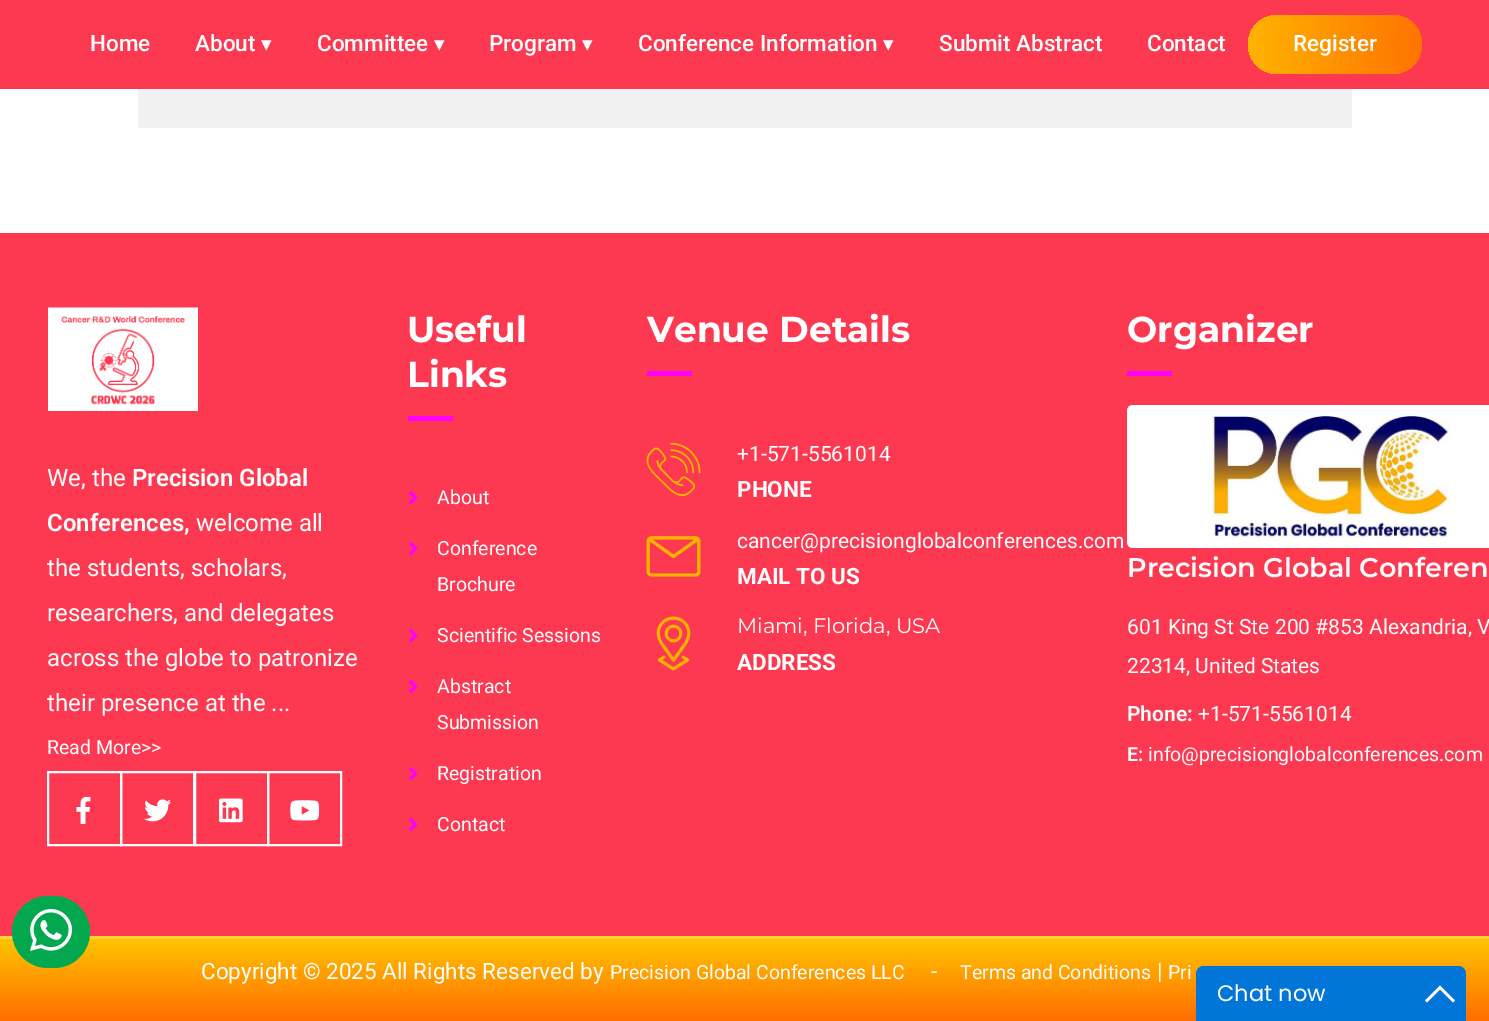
%!PS
<< /PageSize [1489 1021] >> setpagedevice
/rgb { 3 { 255 div 3 1 roll } repeat setrgbcolor } def
/font { [ exch dup neg 0 0 3 -1 roll 0 0 ] selectfont } def
/text { moveto show } def
/roundrect { 5 dict begin { /r /h /w /y /x } { exch def } forall
  x r add y moveto x w add y 2 copy h add r arct x w add y h add x 1 index r arct
  x y h add x y r arct x y 2 copy exch w add exch r arct closepath end } def
/picture { 5 dict begin { /h /w /y /x /name } { exch def } forall
  gsave x y translate w h scale
  w h 8 [w 0 0 h 0 0] name (r) file false 3 colorimage grestore end } def
0 1021 translate 1 -1 scale
4 setmiterlimit
255 255 255 rgb
0 0 1489 1021 rectfill
253 56 81 rgb
0 0 1489 89 rectfill
gsave 1248 15 174 59 29.5 roundrect clip newpath
<< /ShadingType 2 /ColorSpace /DeviceRGB /Coords [1248 44 1422 44] /Extend [true true] /Function << /FunctionType 2 /Domain [0 1] /C0 [1 0.702 0] /C1 [1 0.451 0] /N 1 >> >> shfill grestore
241 241 241 rgb
138 89 1214 39 rectfill
253 56 81 rgb
0 233 1489 703 rectfill
(img_01.rgb) 48 307 150 104 picture
255 255 255 rgb
2 setlinewidth
48 772 73 73 rectstroke
(img_02.rgb) 76 796 15 28 picture
121 772 73 73 rectstroke
(img_03.rgb) 144 799 27 23 picture
195 772 73 73 rectstroke
(img_04.rgb) 219 798 24 25 picture
268 772 73 73 rectstroke
(img_05.rgb) 290 800 30 21 picture
255 0 255 rgb
408 416 45 5 rectfill
(img_06.rgb) 409 491 9 14 picture
(img_06.rgb) 409 542 9 14 picture
(img_06.rgb) 409 629 9 14 picture
(img_06.rgb) 409 680 9 14 picture
(img_06.rgb) 409 767 9 14 picture
(img_06.rgb) 409 818 9 14 picture
647 371 45 5 rectfill
(img_07.rgb) 646 442 55 55 picture
(img_08.rgb) 646 536 55 41 picture
(img_09.rgb) 656 616 35 55 picture
1127 371 45 5 rectfill
255 255 255 rgb
1133 405 moveto 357 0 rlineto 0 143 rlineto -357 0 rlineto -3.5 0 -6 -2.5 -6 -6 rcurveto 0 -131 rlineto 0 -3.5 2.5 -6 6 -6 rcurveto closepath fill
(img_10.rgb) 1210 414 240 125 picture
gsave 0 939 moveto 1489 0 rlineto 0 82 rlineto -1489 0 rlineto closepath clip newpath
<< /ShadingType 2 /ColorSpace /DeviceRGB /Coords [745 936 745 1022] /Extend [true true] /Function << /FunctionType 3 /Domain [0 1] /Functions [<< /FunctionType 2 /Domain [0 1] /C0 [1 0.776 0] /C1 [1 0.776 0] /N 1 >> << /FunctionType 2 /Domain [0 1] /C0 [1 0.776 0] /C1 [1 0.424 0] /N 1 >>] /Bounds [0.01] /Encode [0 1 0 1] >> >> shfill grestore
255 210 59 rgb
0 936 1489 3 rectfill
3 168 78 rgb
12 896 78 72 36 roundrect fill
(img_11.rgb) 30 909 42 42 picture
2 117 216 rgb
1204 966 moveto 254 0 rlineto 4.5 0 8 3.5 8 8 rcurveto 0 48 rlineto -270 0 rlineto 0 -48 rlineto 0 -4.5 3.5 -8 8 -8 rcurveto closepath fill
255 255 255 rgb
1440 985.5 moveto 15 15 rlineto -2 2 rlineto -13 -13 rlineto -13 13 rlineto -2 -2 rlineto closepath fill
/Roboto-Medium 22.5 font
(Home) 90 51 text
(About) 195 51 text
/DejaVuSans-Regular 21 font
(▾) 261 51 text
/Roboto-Medium 22.5 font
(Committee) 317 51 text
/DejaVuSans-Regular 21 font
(▾) 434 51 text
/Roboto-Medium 22.5 font
(Program) 489 51 text
/DejaVuSans-Regular 21 font
(▾) 582 51 text
/Roboto-Medium 22.5 font
(Conference Information) 638 51 text
/DejaVuSans-Regular 21 font
(▾) 883 51 text
/Roboto-Medium 22.5 font
(Submit Abstract) 939 51 text
(Contact) 1147 51 text
(Register) 1293 51 text
/Roboto-Regular 24 font
(We, the) 47 486 text
/Roboto-SemiBold 24 font
(Precision Global) 132 486 text
(Conferences,) 47 531 text
/Roboto-Regular 24 font
(welcome all) 196 531 text
(the students, scholars,) 47 576 text
(researchers, and delegates) 47 621 text
(across the globe to patronize) 47 666 text
(their presence at the ...) 47 711 text
/Roboto-Regular 19.5 font
(Read More>>) 47 754 text
/Montserrat-Bold 36 font
(Useful) 407 342 text
(Links) 407 387 text
/Roboto-Regular 19.5 font
(About) 437 504 text
(Conference) 437 555 text
(Brochure) 437 591 text
(Scientific Sessions) 437 642 text
(Abstract) 437 693 text
(Submission) 437 729 text
(Registration) 437 780 text
(Contact) 437 831 text
/Montserrat-Bold 36 font
(Venue Details) 647 342 text
/Roboto-Regular 21 font
(+1-571-5561014) 737 461 text
/Roboto-Bold 22.5 font
(PHONE) 737 497 text
/Roboto-Regular 21 font
(cancer@precisionglobalconferences.com) 737 548 text
/Roboto-Bold 22.5 font
(MAIL TO US) 737 584 text
/Montserrat-Regular 21 font
(Miami, Florida, USA) 737 633 text
/Roboto-Bold 22.5 font
(ADDRESS) 737 670 text
/Montserrat-Bold 36 font
(Organizer) 1127 342 text
/Montserrat-SemiBold 27 font
(Precision Global Conferen) 1127 577 text
/Roboto-Regular 21 font
(601 King St Ste 200 #853 Alexandria, V) 1127 634 text
(22314, United States) 1127 673 text
/Roboto-SemiBold 21 font
(Phone:) 1127 721 text
/Roboto-Regular 21 font
(+1-571-5561014) 1198 721 text
/Roboto-SemiBold 19.5 font
(E:) 1127 761 text
/Roboto-Regular 19.5 font
(info@precisionglobalconferences.com) 1148 761 text
/Roboto-Regular 22.5 font
(Copyright © 2025 All Rights Reserved by) 201 979 text
/Roboto-Regular 19.5 font
(Precision Global Conferences LLC) 610 979 text
/Roboto-Regular 22.5 font
(-) 931 979 text
/Roboto-Regular 19.5 font
(Terms and Conditions) 960 979 text
/Roboto-Regular 22.5 font
(|) 1157 979 text
/Roboto-Regular 19.5 font
(Pri) 1168 979 text
/Poppins-Regular 22.5 font
(Chat now) 1217 1001 text
showpage
